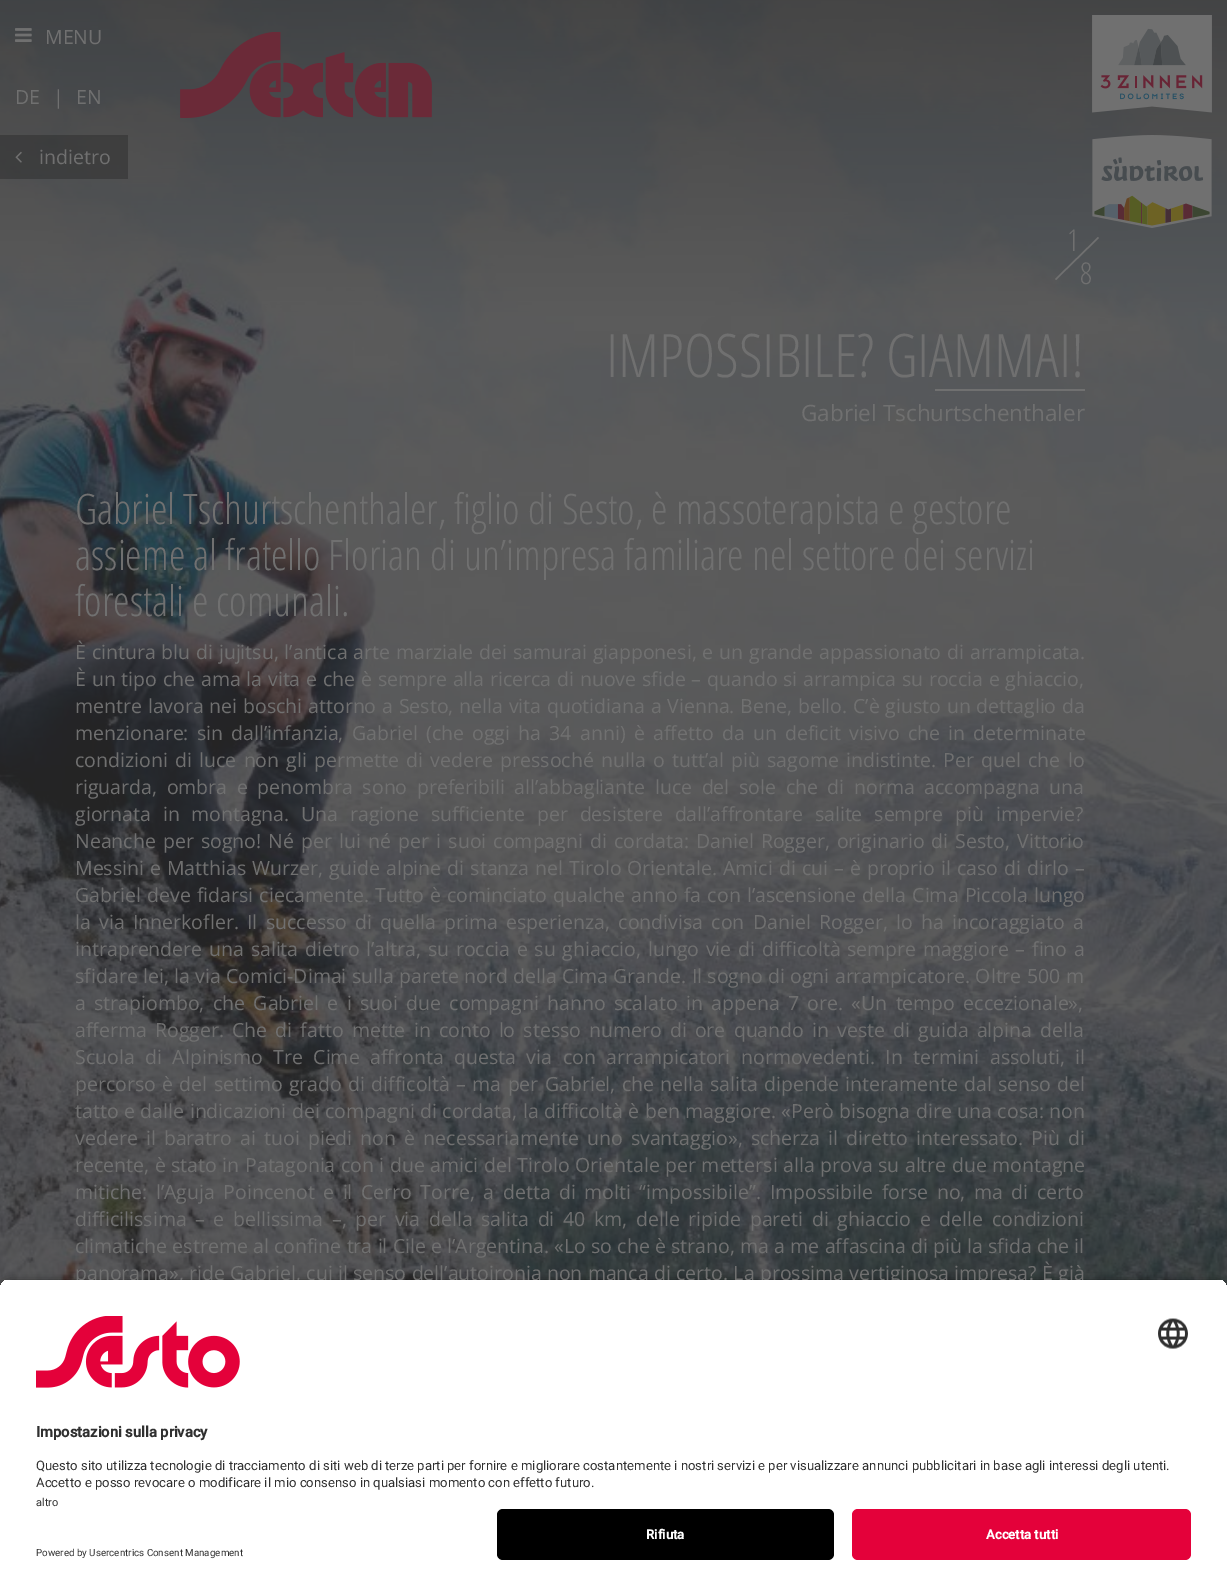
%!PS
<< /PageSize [1227 1596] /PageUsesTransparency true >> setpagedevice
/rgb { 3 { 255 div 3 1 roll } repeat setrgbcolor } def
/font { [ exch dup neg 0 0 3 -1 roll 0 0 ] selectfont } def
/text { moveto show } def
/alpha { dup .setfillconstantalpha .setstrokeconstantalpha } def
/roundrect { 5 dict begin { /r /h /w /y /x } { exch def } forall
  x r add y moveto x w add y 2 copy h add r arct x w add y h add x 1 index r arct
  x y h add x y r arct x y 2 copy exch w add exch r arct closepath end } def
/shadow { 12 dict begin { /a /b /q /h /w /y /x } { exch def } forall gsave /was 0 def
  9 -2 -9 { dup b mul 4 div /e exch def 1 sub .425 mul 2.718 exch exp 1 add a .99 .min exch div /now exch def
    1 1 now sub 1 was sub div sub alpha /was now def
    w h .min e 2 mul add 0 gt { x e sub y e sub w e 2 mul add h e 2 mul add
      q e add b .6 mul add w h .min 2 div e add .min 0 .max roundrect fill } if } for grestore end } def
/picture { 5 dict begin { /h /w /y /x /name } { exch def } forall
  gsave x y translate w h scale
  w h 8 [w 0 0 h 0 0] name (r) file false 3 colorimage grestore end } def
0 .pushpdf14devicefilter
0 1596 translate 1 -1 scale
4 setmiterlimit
255 255 255 rgb
0 0 1227 1596 rectfill
(img_06.rgb) 0 0 1227 1290 picture
(img_01.rgb) 15 28 17 14 picture
(img_02.rgb) 180 32 252 86 picture
0.4 alpha
36 36 36 rgb
0 135 128 44 rectfill
1 alpha
(img_03.rgb) 15 151 7 12 picture
(img_04.rgb) 1092 15 120 98 picture
(img_05.rgb) 1092 135 120 93 picture
112 112 112 rgb
1055 279 moveto 43 -42 rlineto 1 1 rlineto -43 42 rlineto closepath fill
935 389 150 2 rectfill
0 0 0 rgb
0 1283 1227 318 12 5 0.8 shadow
255 255 255 rgb
0 1497 1227 99 rectfill
0 0 0 rgb
497 1509 337 51 6 roundrect fill
228 1 58 rgb
852 1509 339 51 6 roundrect fill
/OpenSans-Regular 19.5 font
112 112 112 rgb
(MENU) 45 44 text
(DE) 15 104 text
(|) 53 104 text
(EN) 76 104 text
(indietro) 39 164 text
/OpenSansCondensed-Light 30 font
(1) 1067 251 text
(8) 1080 284 text
/OpenSansCondensed-Light 60 font
(IMPOSSIBILE? GIAMMAI!) 606 377 text
/OpenSans-Regular 22.5 font
(Gabriel Tschurtschenthaler) 801 421 text
/OpenSansCondensed-Light 42 font
(Gabriel Tschurtschenthaler, figlio di Sesto, è massoterapista e gestore) 75 524 text
(assieme al fratello Florian di un’impresa familiare nel settore dei servizi) 75 570 text
(forestali e comunali.) 75 616 text
/OpenSans-Regular 19.5 font
75 659 moveto 0.75 0 32 (È cintura blu di jujitsu, l’antica arte marziale dei samurai giapponesi, e un grande appassionato di arrampicata.) widthshow
75 686 moveto 0.75 0 32 (È un tipo che ama la vita e che è sempre alla ricerca di nuove sfide – quando si arrampica su roccia e ghiaccio,) widthshow
75 713 moveto 0.75 0 32 (mentre lavora nei boschi attorno a Sesto, nella vita quotidiana a Vienna. Bene, bello. C’è giusto un dettaglio da) widthshow
75 740 moveto 3.25 0 32 (menzionare: sin dall’infanzia, Gabriel \(che oggi ha 34 anni\) è affetto da un deficit visivo che in determinate) widthshow
75 767 moveto 2.25 0 32 (condizioni di luce non gli permette di vedere pressoché nulla o tutt’al più sagome indistinte. Per quel che lo) widthshow
75 794 moveto 4.6 0 32 (riguarda, ombra e penombra sono preferibili all’abbagliante luce del sole che di norma accompagna una) widthshow
75 821 moveto 6.75 0 32 (giornata in montagna. Una ragione sufficiente per desistere dall’affrontare salite sempre più impervie?) widthshow
75 848 moveto 2.1 0 32 (Neanche per sogno! Né per lui né per i suoi compagni di cordata: Daniel Rogger, originario di Sesto, Vittorio) widthshow
75 875 moveto 1 0 32 (Messini e Matthias Wurzer, guide alpine di stanza nel Tirolo Orientale. Amici di cui – è proprio il caso di dirlo –) widthshow
75 902 moveto 1.2 0 32 (Gabriel deve fidarsi ciecamente. Tutto è cominciato qualche anno fa con l’ascensione della Cima Piccola lungo) widthshow
75 929 moveto 3.25 0 32 (la via Innerkofler. Il successo di quella prima esperienza, condivisa con Daniel Rogger, lo ha incoraggiato a) widthshow
75 956 moveto 1.7 0 32 (intraprendere una salita dietro l’altra, su roccia e su ghiaccio, lungo vie di difficoltà sempre maggiore – fino a) widthshow
75 983 moveto 0.3 0 32 (sfidare lei, la via Comici-Dimai sulla parete nord della Cima Grande. Il sogno di ogni arrampicatore. Oltre 500 m) widthshow
75 1010 moveto 3.25 0 32 (a strapiombo, che Gabriel e i suoi due compagni hanno scalato in appena 7 ore. «Un tempo eccezionale»,) widthshow
75 1037 moveto 3.1 0 32 (afferma Rogger. Che di fatto mette in conto lo stesso numero di ore quando in veste di guida alpina della) widthshow
75 1064 moveto 5.5 0 32 (Scuola di Alpinismo Tre Cime affronta questa via con arrampicatori normovedenti. In termini assoluti, il) widthshow
75 1091 moveto 1.25 0 32 (percorso è del settimo grado di difficoltà – ma per Gabriel, che nella salita dipende interamente dal senso del) widthshow
75 1118 moveto 0.5 0 32 (tatto e dalle indicazioni dei compagni di cordata, la difficoltà è ben maggiore. «Però bisogna dire una cosa: non) widthshow
75 1145 moveto 3.1 0 32 (vedere il baratro ai tuoi piedi non è necessariamente uno svantaggio», scherza il diretto interessato. Più di) widthshow
75 1172 moveto 0.5 0 32 (recente, è stato in Patagonia con i due amici del Tirolo Orientale per mettersi alla prova su altre due montagne) widthshow
75 1199 moveto 3.5 0 32 (mitiche: l’Aguja Poincenot e il Cerro Torre, a detta di molti “impossibile”. Impossibile forse no, ma di certo) widthshow
75 1226 moveto 3.6 0 32 (difficilissima – e bellissima –, per via della salita di 40 km, delle ripide pareti di ghiaccio e delle condizioni) widthshow
75 1253 moveto 0.2 0 32 (climatiche estreme al confine tra il Cile e l’Argentina. «Lo so che è strano, ma a me affascina di più la sfida che il) widthshow
75 1280 moveto 0.25 0 32 (panorama», ride Gabriel, cui il senso dell’autoironia non manca di certo. La prossima vertiginosa impresa? È già) widthshow
gsave
12 1278 moveto 1203 0 rlineto 6.5 0 12 5.5 12 12 rcurveto 0 207 rlineto -1227 0 rlineto 0 -207 rlineto 0 -6.5 5.5 -12 12 -12 rcurveto closepath clip newpath
255 255 255 rgb
0 1280 1227 217 rectfill
grestore
(img_07.rgb) 36 1316 204 72 picture
(img_08.rgb) 1158 1318 30 31 picture
/Roboto-Bold 14.75 font
48 48 48 rgb
(Impostazioni sulla privacy) 36 1437 text
/Roboto-Regular 13.12 font
(Questo sito utilizza tecnologie di tracciamento di siti web di terze parti per fornire e migliorare costantemente i nostri servizi e per visualizzare annunci pubblicitari in base agli interessi degli utenti.) 36 1470 text
(Accetto e posso revocare o modificare il mio consenso in qualsiasi momento con effetto futuro.) 36 1487 text
/Roboto-Regular 11 font
(altro) 36 1506 text
/Roboto-Regular 9.8 font
(Powered by Usercentrics Consent Management) 36 1556 text
/Roboto-Bold 13.12 font
255 255 255 rgb
(Rifiuta) 646 1539 text
(Accetta tutti) 986 1539 text
.poppdf14devicefilter showpage
